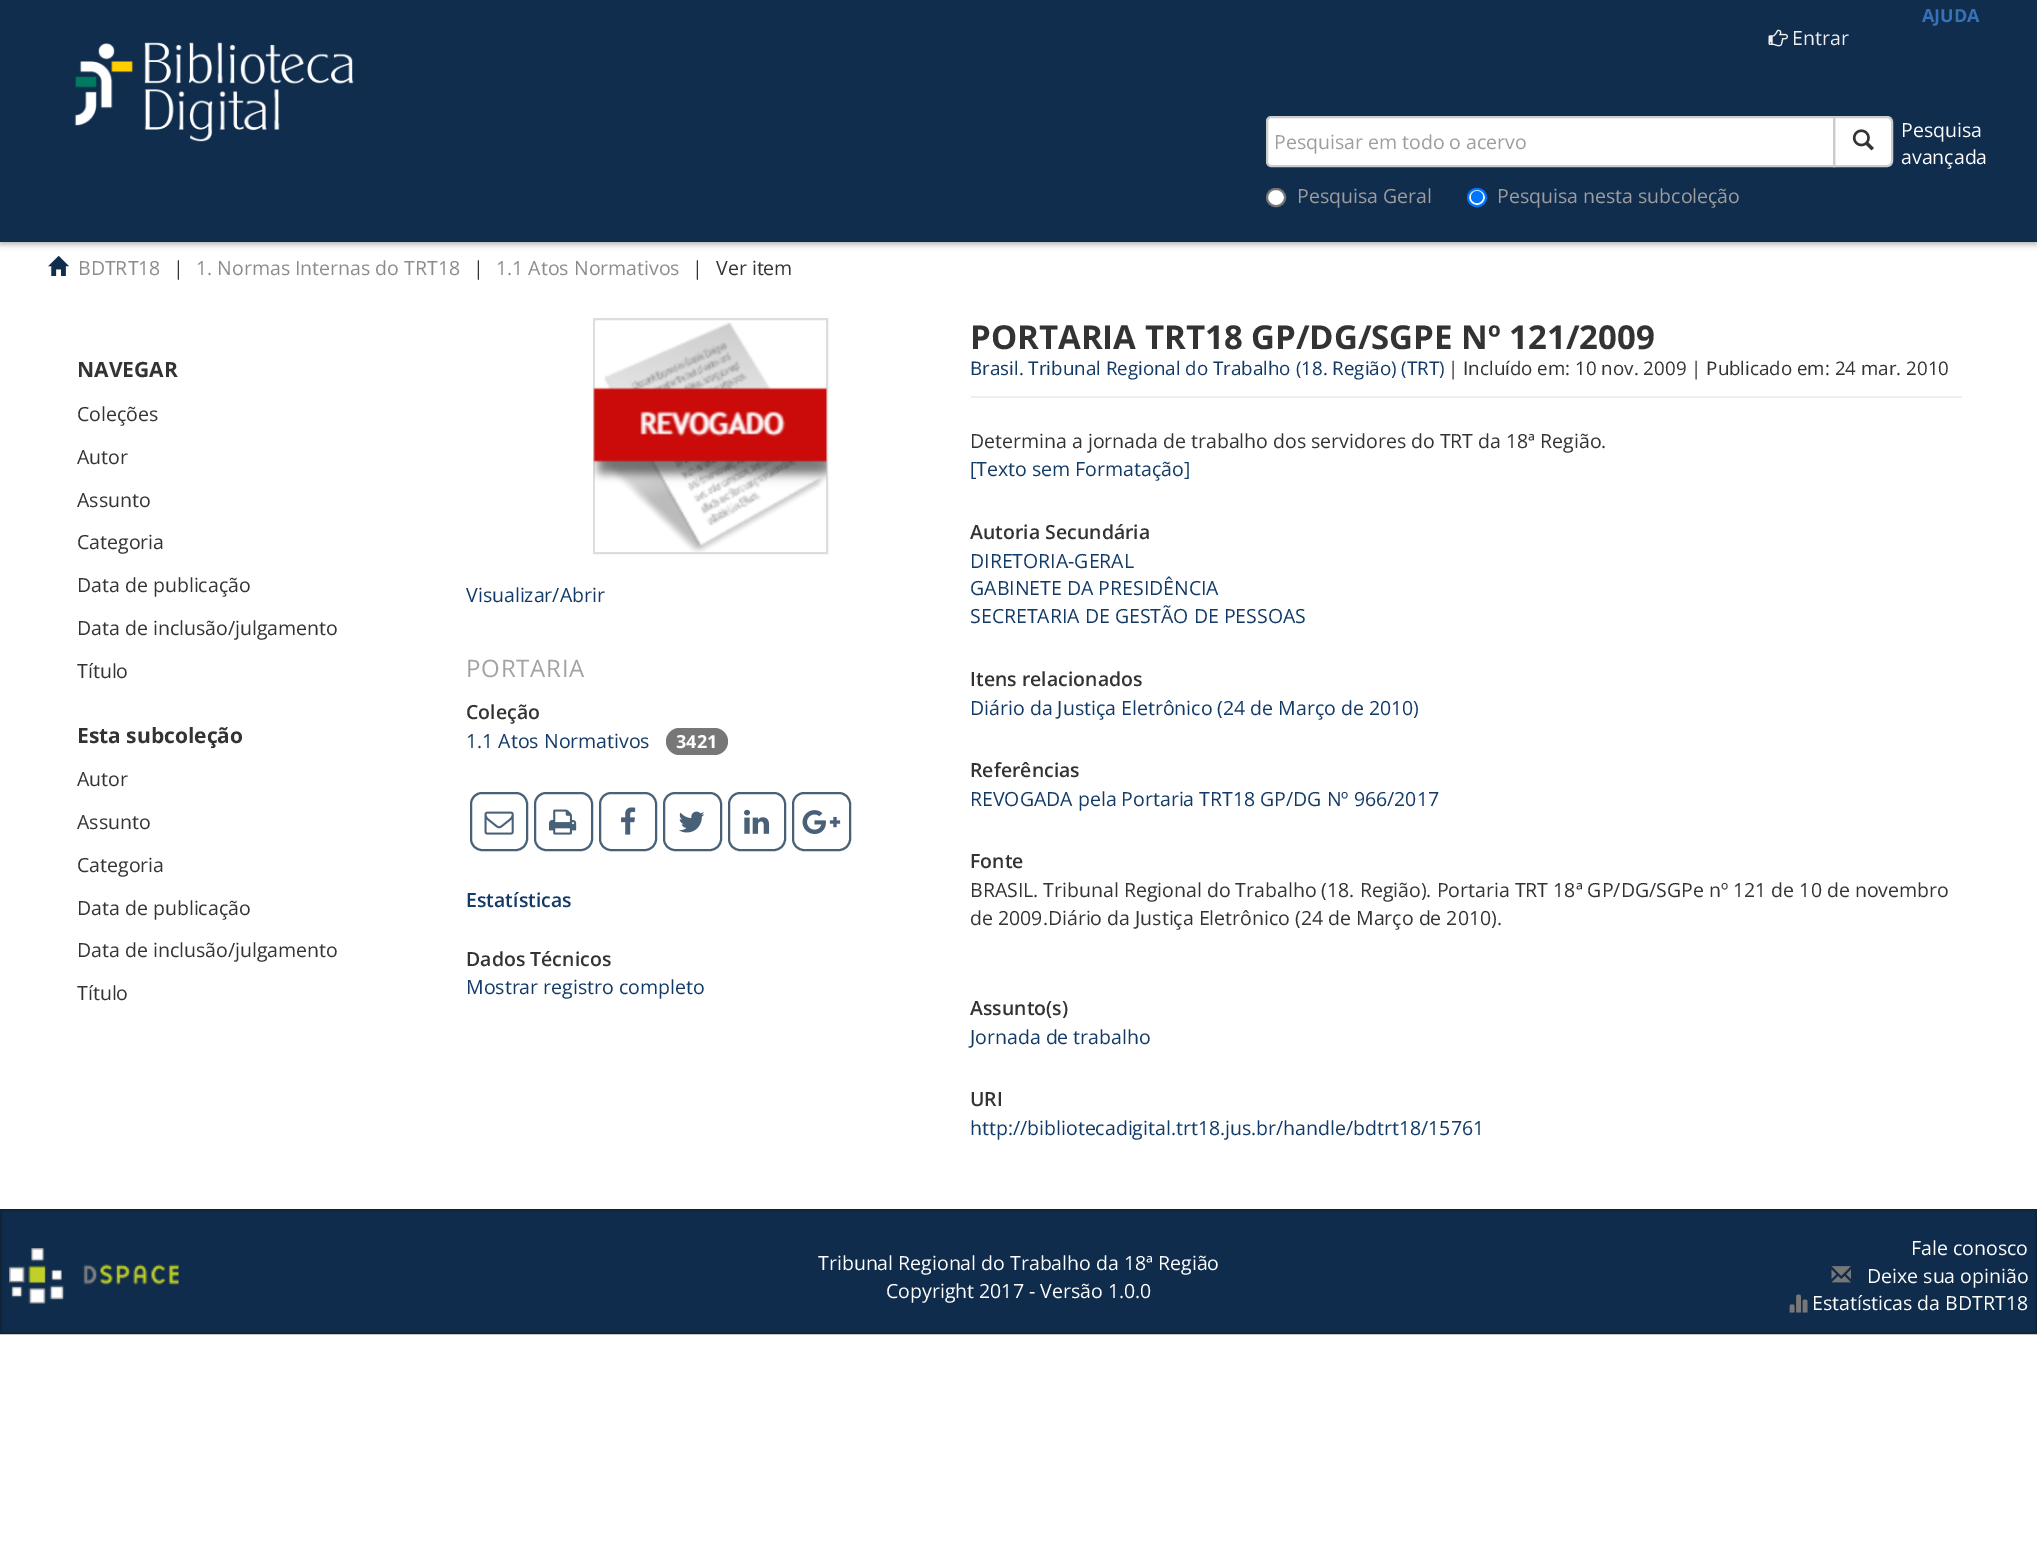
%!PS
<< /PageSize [2037 1548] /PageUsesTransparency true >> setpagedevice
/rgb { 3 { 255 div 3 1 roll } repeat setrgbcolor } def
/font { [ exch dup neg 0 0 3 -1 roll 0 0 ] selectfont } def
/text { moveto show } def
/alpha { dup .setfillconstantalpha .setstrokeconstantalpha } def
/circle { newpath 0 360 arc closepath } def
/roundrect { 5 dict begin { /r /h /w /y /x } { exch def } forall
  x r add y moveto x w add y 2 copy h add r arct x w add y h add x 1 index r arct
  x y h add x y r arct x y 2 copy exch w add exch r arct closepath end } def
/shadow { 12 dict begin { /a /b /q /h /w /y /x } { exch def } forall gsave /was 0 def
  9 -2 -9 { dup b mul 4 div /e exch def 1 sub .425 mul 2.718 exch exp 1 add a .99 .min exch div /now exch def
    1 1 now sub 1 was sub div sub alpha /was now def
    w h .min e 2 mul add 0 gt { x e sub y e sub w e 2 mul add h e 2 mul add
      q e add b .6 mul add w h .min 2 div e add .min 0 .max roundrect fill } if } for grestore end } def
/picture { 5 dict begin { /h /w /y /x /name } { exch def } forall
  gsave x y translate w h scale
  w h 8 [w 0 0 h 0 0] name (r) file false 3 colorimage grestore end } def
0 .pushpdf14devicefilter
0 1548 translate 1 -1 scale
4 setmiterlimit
255 255 255 rgb
0 0 2037 1548 rectfill
0 0 0 rgb
0 3 2037 242 0 3 0.24 shadow
0 0 2037 242 0 1.5 0.12 shadow
16 45 78 rgb
0 0 2037 242 rectfill
(img_01.rgb) 1768 29 20 18 picture
(img_02.rgb) 74 42 280 100 picture
255 255 255 rgb
1834 117 moveto 53 0 rlineto 3 0 5 2 5 5 rcurveto 0 39 rlineto 0 3 -2 5 -5 5 rcurveto -53 0 rlineto closepath gsave fill grestore
204 204 204 rgb
2 setlinewidth
stroke
255 255 255 rgb
1271 117 moveto 563 0 rlineto 0 49 rlineto -563 0 rlineto -2 0 -4 -2 -4 -4 rcurveto 0 -41 rlineto 0 -2 2 -4 4 -4 rcurveto closepath gsave fill grestore
204 204 204 rgb
stroke
(img_03.rgb) 1852 129 22 22 picture
255 255 255 rgb
1267 189 18 17 8.5 roundrect gsave fill grestore
118 118 118 rgb
stroke
255 255 255 rgb
1468 189 18 17 8.5 roundrect gsave fill grestore
0 117 255 rgb
stroke
1477 197 6 circle fill
(img_04.rgb) 48 255 21 21 picture
221 221 221 rgb
594 319 233 234 rectstroke
(img_05.rgb) 593 322 234 230 picture
119 119 119 rgb
666 728 62 27 13.5 roundrect fill
73 97 120 rgb
471 793 56 57 11 roundrect stroke
(img_06.rgb) 484 811 30 24 picture
535 793 57 57 11 roundrect stroke
(img_07.rgb) 549 809 28 26 picture
600 793 56 57 11 roundrect stroke
(img_08.rgb) 621 807 15 28 picture
664 793 57 57 11 roundrect stroke
(img_09.rgb) 679 811 26 22 picture
729 793 56 57 11 roundrect stroke
(img_10.rgb) 744 809 26 25 picture
793 793 57 57 11 roundrect stroke
(img_11.rgb) 802 810 39 24 picture
238 238 238 rgb
971 396 991 2 rectfill
16 44 76 rgb
1 1210 moveto 2035 0 rlineto 0 123 rlineto -2035 0 rlineto closepath gsave fill grestore
18 37 56 rgb
stroke
(img_12.rgb) 9 1248 170 56 picture
(img_13.rgb) 1831 1266 20 17 picture
(img_14.rgb) 1789 1294 19 19 picture
/OpenSans-Bold 18 font
53 114 183 rgb
(AJUDA) 1922 22 text
/OpenSans-Regular 19.5 font
238 238 238 rgb
(Entrar) 1792 45 text
157 157 157 rgb
(Pesquisar em todo o acervo) 1274 149 text
(Pesquisa Geral) 1297 203 text
(Pesquisa nesta subcoleção) 1497 203 text
255 255 255 rgb
(Pesquisa) 1901 137 text
(avançada) 1901 164 text
140 140 140 rgb
(BDTRT18) 78 275 text
51 51 51 rgb
(|) 173 275 text
140 140 140 rgb
(1. Normas Internas do TRT18) 196 275 text
51 51 51 rgb
(|) 473 275 text
140 140 140 rgb
(1.1 Atos Normativos) 496 275 text
51 51 51 rgb
(|) 692 275 text
(Ver item) 716 275 text
/OpenSans-Bold 21 font
(NAVEGAR) 77 377 text
/OpenSans-Regular 19.5 font
(Coleções) 77 421 text
(Autor) 77 464 text
(Assunto) 77 507 text
(Categoria) 77 549 text
(Data de publicação) 77 592 text
(Data de inclusão/julgamento) 77 635 text
(Título) 77 678 text
/OpenSans-Bold 21 font
(Esta subcoleção) 77 743 text
/OpenSans-Regular 19.5 font
(Autor) 77 786 text
(Assunto) 77 829 text
(Categoria) 77 872 text
(Data de publicação) 77 915 text
(Data de inclusão/julgamento) 77 957 text
(Título) 77 1000 text
18 58 103 rgb
(Visualizar/Abrir) 466 602 text
/OpenSans-Regular 24 font
163 163 164 rgb
466 677 moveto 0.75 0 (PORTARIA) ashow
/OpenSans-SemiBold 19.5 font
51 51 51 rgb
(Coleção) 466 719 text
/OpenSans-Regular 19.5 font
18 58 103 rgb
(1.1 Atos Normativos) 466 748 text
/OpenSans-Bold 18 font
255 255 255 rgb
(3421) 676 748 text
/OpenSans-SemiBold 19.5 font
18 58 103 rgb
(Estatísticas) 466 907 text
51 51 51 rgb
(Dados Técnicos) 466 966 text
/OpenSans-Regular 19.5 font
18 58 103 rgb
(Mostrar registro completo) 466 994 text
/OpenSans-Bold 33 font
51 51 51 rgb
(PORTARIA TRT18 GP/DG/SGPE Nº 121/2009) 970 349 text
/OpenSans-Regular 18.75 font
18 58 103 rgb
(Brasil. Tribunal Regional do Trabalho \(18. Região\) \(TRT\)) 970 375 text
51 51 51 rgb
(| Incluído em: 10 nov. 2009 | Publicado em: 24 mar. 2010) 1448 375 text
/OpenSans-Regular 19.5 font
(Determina a jornada de trabalho dos servidores do TRT da 18ª Região.) 970 448 text
18 58 103 rgb
([Texto sem Formatação]) 970 476 text
/OpenSans-SemiBold 19.5 font
51 51 51 rgb
(Autoria Secundária) 970 539 text
/OpenSans-Regular 19.5 font
18 58 103 rgb
(DIRETORIA-GERAL) 970 568 text
(GABINETE DA PRESIDÊNCIA) 970 595 text
(SECRETARIA DE GESTÃO DE PESSOAS) 970 623 text
/OpenSans-SemiBold 19.5 font
51 51 51 rgb
(Itens relacionados) 970 686 text
/OpenSans-Regular 19.5 font
18 58 103 rgb
(Diário da Justiça Eletrônico \(24 de Março de 2010\)) 970 715 text
/OpenSans-SemiBold 19.5 font
51 51 51 rgb
(Referências) 970 777 text
/OpenSans-Regular 19.5 font
18 58 103 rgb
(REVOGADA pela Portaria TRT18 GP/DG Nº 966/2017) 970 806 text
/OpenSans-SemiBold 19.5 font
51 51 51 rgb
(Fonte) 970 868 text
/OpenSans-Regular 19.5 font
(BRASIL. Tribunal Regional do Trabalho \(18. Região\). Portaria TRT 18ª GP/DG/SGPe nº 121 de 10 de novembro) 970 897 text
(de 2009.Diário da Justiça Eletrônico \(24 de Março de 2010\).) 970 925 text
/OpenSans-SemiBold 19.5 font
(Assunto\(s\)) 970 1015 text
/OpenSans-Regular 19.5 font
18 58 103 rgb
(Jornada de trabalho) 970 1044 text
/OpenSans-SemiBold 19.5 font
51 51 51 rgb
(URI) 970 1106 text
/OpenSans-Regular 19.5 font
18 58 103 rgb
(http://bibliotecadigital.trt18.jus.br/handle/bdtrt18/15761) 970 1135 text
255 255 255 rgb
(Tribunal Regional do Trabalho da 18ª Região) 818 1270 text
(Copyright 2017 - Versão 1.0.0) 886 1298 text
(Fale conosco) 1911 1255 text
(Deixe sua opinião) 1867 1283 text
(Estatísticas da BDTRT18) 1812 1310 text
.poppdf14devicefilter showpage
